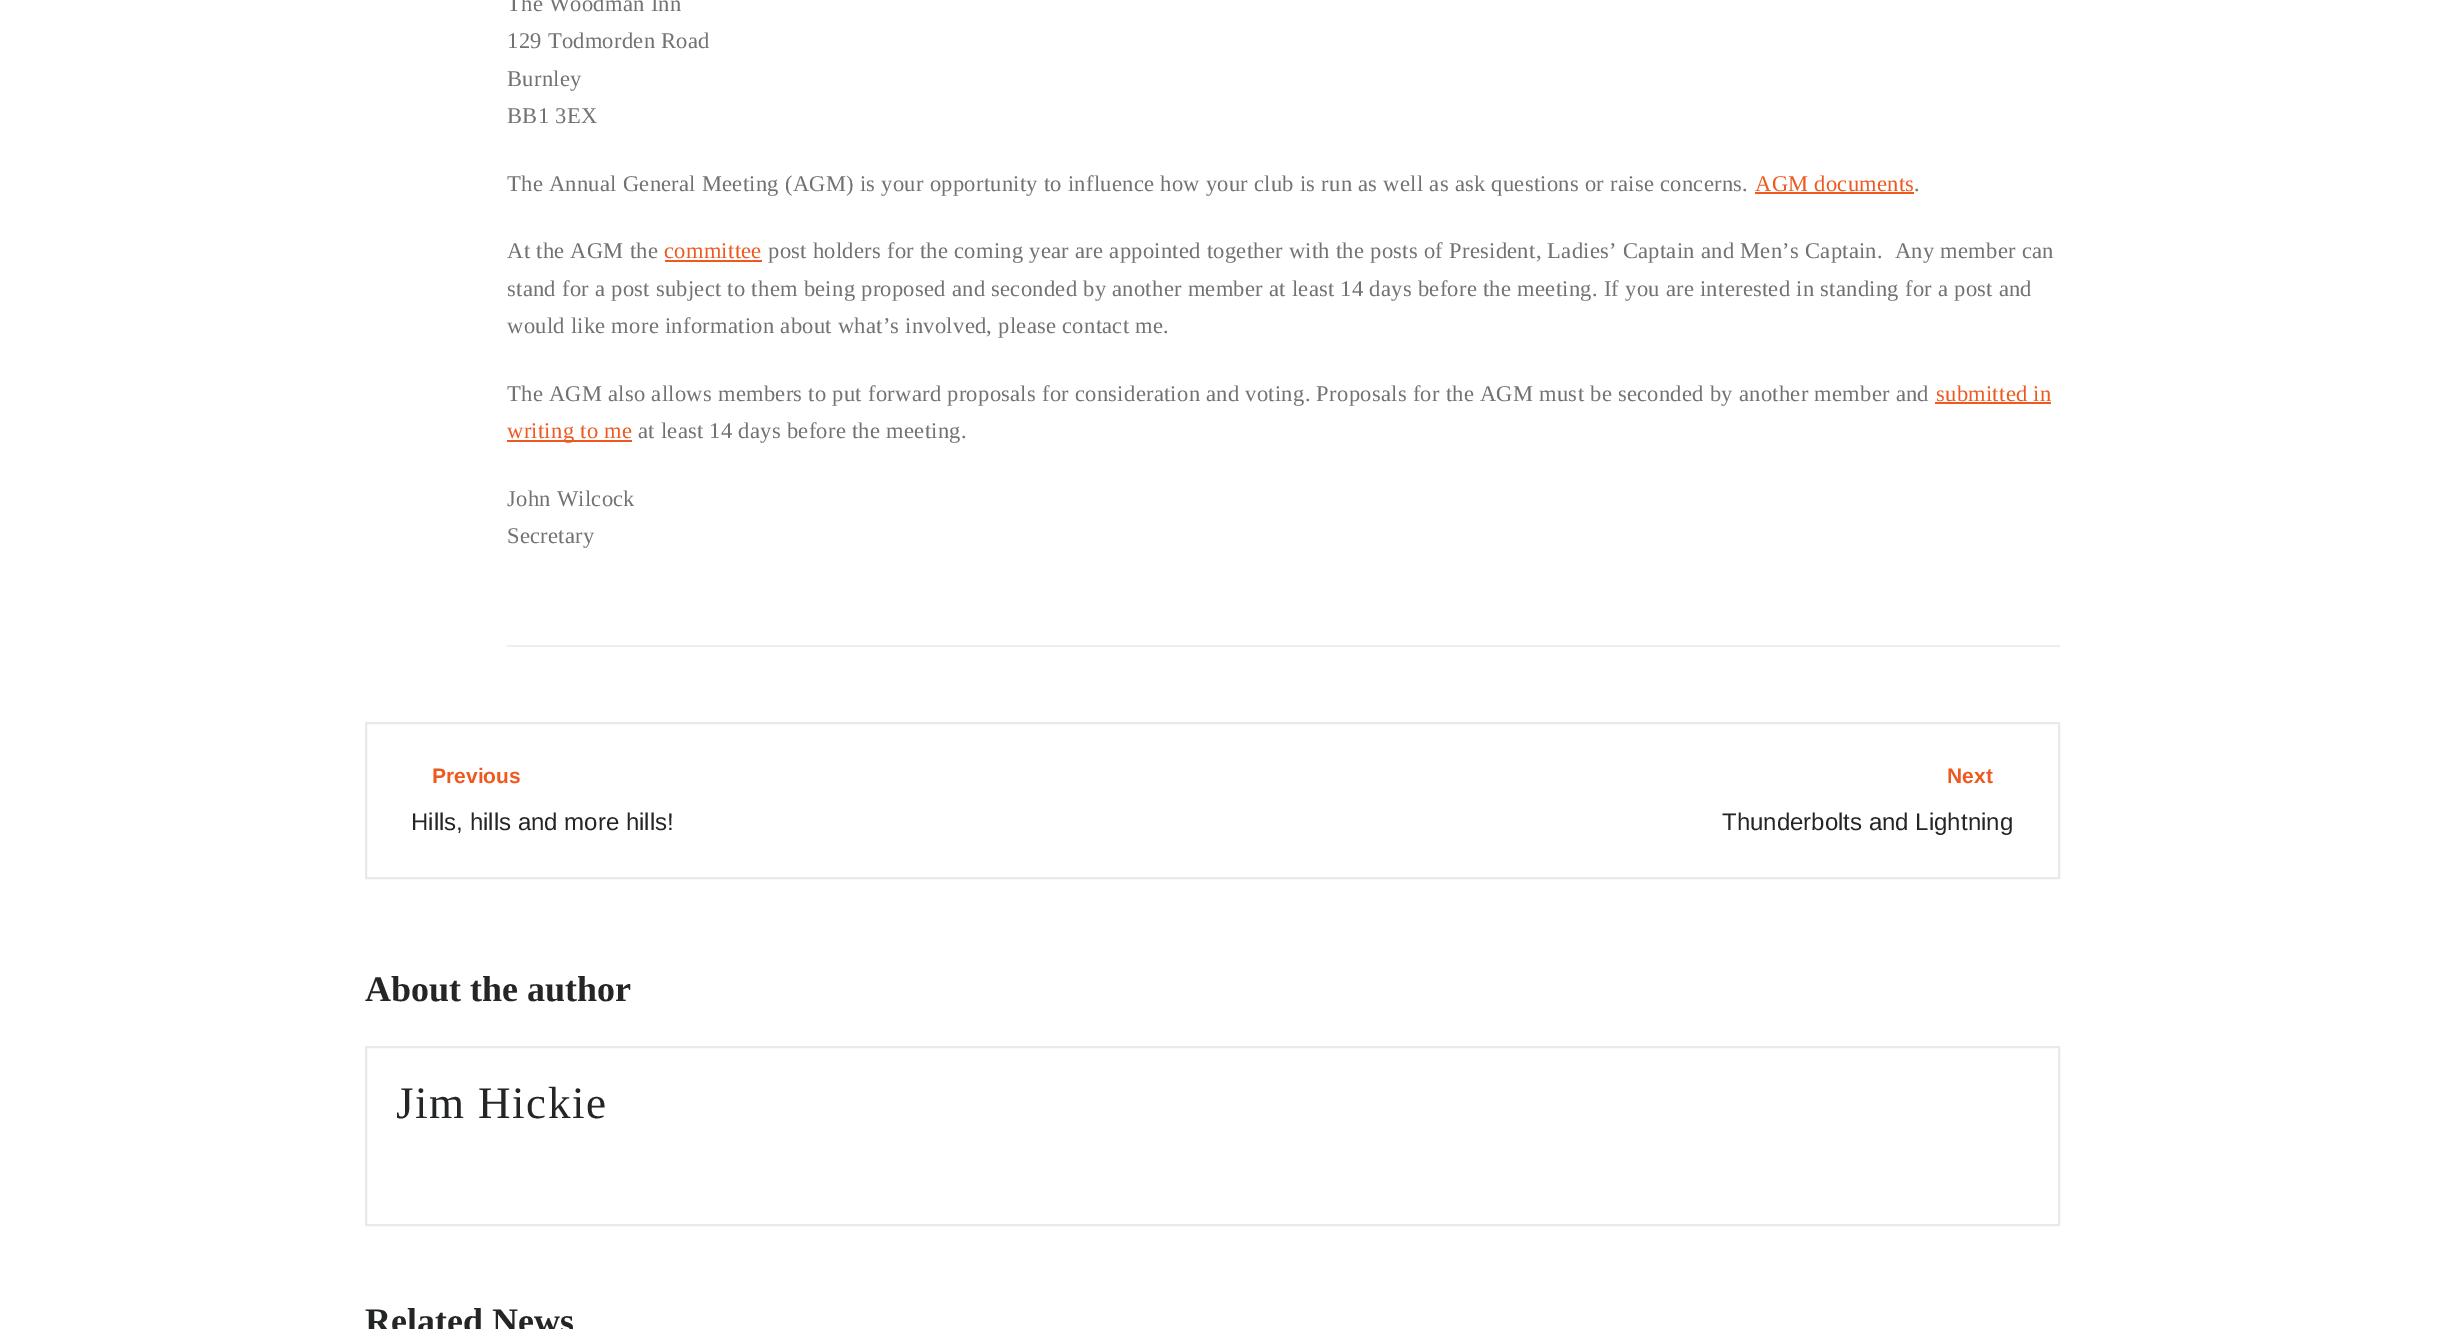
%!PS
<< /PageSize [2439 1329] >> setpagedevice
/rgb { 3 { 255 div 3 1 roll } repeat setrgbcolor } def
/font { [ exch dup neg 0 0 3 -1 roll 0 0 ] selectfont } def
/text { moveto show } def
0 1329 translate 1 -1 scale
4 setmiterlimit
255 255 255 rgb
0 0 2439 1329 rectfill
238 238 238 rgb
507 645 1553 2 rectfill
238 89 31 rgb
1755 192 159 2 rectfill
665 260 97 2 rectfill
1935 402 116 2 rectfill
507 440 125 2 rectfill
233 233 233 rgb
2 setlinewidth
366 723 1693 155 rectstroke
366 1047 1693 178 rectstroke
/LiberationSerif-Regular 22.5 font
114 114 114 rgb
507 11 moveto 0.3 0 (The Woodman Inn) ashow
507 48 moveto 0.3 0 (129 Todmorden Road) ashow
507 86 moveto 0.3 0 (Burnley) ashow
507 123 moveto 0.3 0 (BB1 3EX) ashow
507 191 moveto 0.3 0 (The Annual General Meeting \(AGM\) is your opportunity to influence how your club is run as well as ask questions or raise concerns.) ashow
238 89 31 rgb
1755 191 moveto 0.3 0 (AGM documents) ashow
114 114 114 rgb
1914 191 moveto 0.3 0 (.) ashow
507 258 moveto 0.3 0 (At the AGM the) ashow
238 89 31 rgb
664 258 moveto 0.3 0 (committee) ashow
114 114 114 rgb
768 258 moveto 0.3 0 (post holders for the coming year are appointed together with the posts of President, Ladies’ Captain and Men’s Captain.  Any member can) ashow
507 296 moveto 0.3 0 (stand for a post subject to them being proposed and seconded by another member at least 14 days before the meeting. If you are interested in standing for a post and) ashow
507 333 moveto 0.3 0 (would like more information about what’s involved, please contact me.) ashow
507 401 moveto 0.3 0 (The AGM also allows members to put forward proposals for consideration and voting. Proposals for the AGM must be seconded by another member and) ashow
238 89 31 rgb
1936 401 moveto 0.3 0 (submitted in) ashow
507 438 moveto 0.3 0 (writing to me) ashow
114 114 114 rgb
638 438 moveto 0.3 0 (at least 14 days before the meeting.) ashow
507 506 moveto 0.3 0 (John Wilcock) ashow
507 543 moveto 0.3 0 (Secretary) ashow
/LiberationSans-Bold 21 font
238 89 31 rgb
(Previous) 432 783 text
/LiberationSans-Regular 24 font
36 37 38 rgb
(Hills, hills and more hills!) 411 830 text
/LiberationSans-Bold 21 font
238 89 31 rgb
(Next) 1947 783 text
/LiberationSans-Regular 24 font
36 37 38 rgb
(Thunderbolts and Lightning) 1722 830 text
/LiberationSerif-Bold 36 font
(About the author) 365 1001 text
/LiberationSerif-Regular 45 font
396 1118 moveto 1.5 0 (Jim Hickie) ashow
/LiberationSerif-Bold 36 font
(Related News) 365 1333 text
showpage
